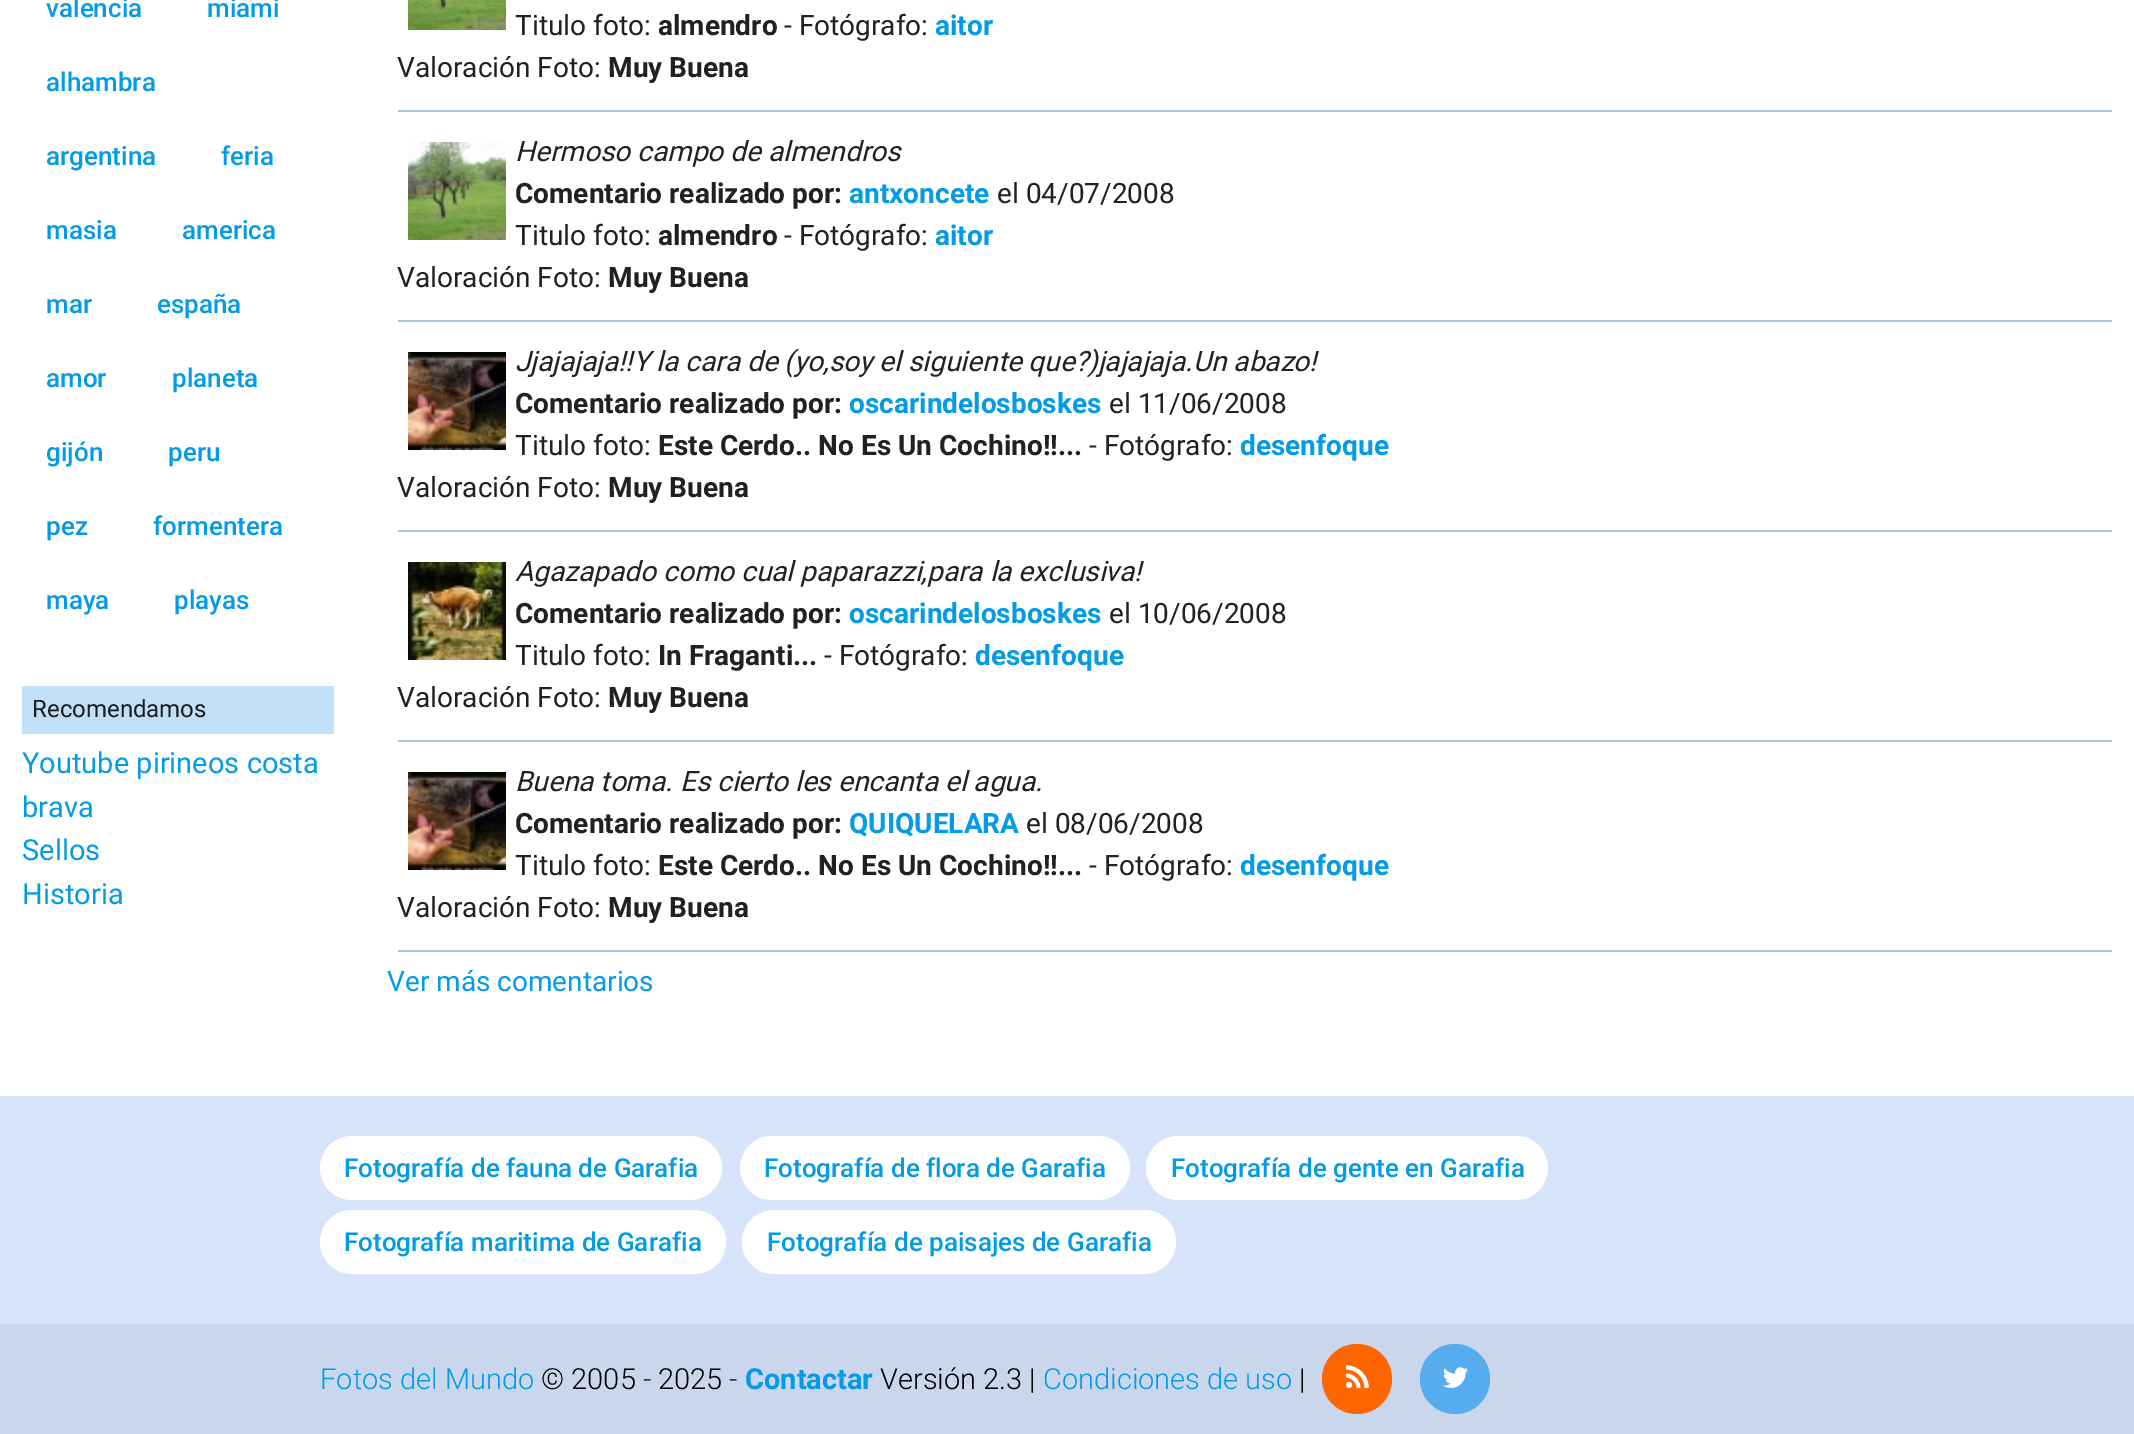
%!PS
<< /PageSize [2134 1434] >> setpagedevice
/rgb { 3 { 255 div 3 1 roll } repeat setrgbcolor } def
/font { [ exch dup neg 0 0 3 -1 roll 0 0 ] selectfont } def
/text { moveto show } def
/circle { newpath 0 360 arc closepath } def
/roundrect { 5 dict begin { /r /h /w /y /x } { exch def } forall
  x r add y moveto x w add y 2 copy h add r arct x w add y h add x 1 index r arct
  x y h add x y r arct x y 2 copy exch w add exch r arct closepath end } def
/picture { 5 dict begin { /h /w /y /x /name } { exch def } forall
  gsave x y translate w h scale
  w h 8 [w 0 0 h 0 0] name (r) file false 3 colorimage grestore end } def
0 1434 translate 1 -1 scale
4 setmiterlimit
255 255 255 rgb
0 0 2134 1434 rectfill
193 223 247 rgb
22 686 312 48 rectfill
169 192 224 rgb
398 110 1714 2 rectfill
(img_01.rgb) 408 0 98 30 picture
398 320 1714 2 rectfill
(img_02.rgb) 408 142 98 98 picture
398 530 1714 2 rectfill
(img_03.rgb) 408 352 98 98 picture
398 740 1714 2 rectfill
(img_04.rgb) 408 562 98 98 picture
398 950 1714 2 rectfill
(img_03.rgb) 408 772 98 98 picture
215 229 252 rgb
0 1096 2134 228 rectfill
255 255 255 rgb
320 1136 402 64 32 roundrect fill
740 1136 390 64 32 roundrect fill
1146 1136 402 64 32 roundrect fill
320 1210 406 64 32 roundrect fill
742 1210 434 64 32 roundrect fill
202 214 236 rgb
0 1324 2134 110 rectfill
255 102 0 rgb
1357 1379 35 circle fill
(img_05.rgb) 1346 1365 23 23 picture
85 172 238 rgb
1455 1379 35 circle fill
(img_06.rgb) 1443 1367 25 21 picture
/Roboto-Medium 26 font
3 155 229 rgb
(valencia) 46 17 text
(miami) 207 17 text
(alhambra) 46 91 text
(argentina) 46 165 text
(feria) 221 165 text
(masia) 46 239 text
(america) 182 239 text
(mar) 46 313 text
(españa) 157 313 text
(amor) 46 387 text
(planeta) 172 387 text
(gijón) 46 461 text
(peru) 168 461 text
(pez) 46 535 text
(formentera) 153 535 text
(maya) 46 609 text
(playas) 174 609 text
/Roboto-Regular 24 font
25 29 32 rgb
(Recomendamos) 32 717 text
/Roboto-Regular 29 font
3 155 229 rgb
(Youtube pirineos costa) 22 773 text
(brava) 22 817 text
(Sellos) 22 860 text
(Historia) 22 904 text
/Roboto-Regular 28 font
33 33 33 rgb
(Titulo foto:) 515 35 text
/Roboto-Bold 28 font
(almendro) 658 35 text
/Roboto-Regular 28 font
(- Fotógrafo:) 784 35 text
/Roboto-Bold 28 font
3 155 229 rgb
(aitor) 935 35 text
/Roboto-Regular 28 font
33 33 33 rgb
(Valoración Foto:) 397 77 text
/Roboto-Bold 28 font
(Muy Buena) 608 77 text
/Roboto-Italic 28 font
(Hermoso campo de almendros) 515 161 text
/Roboto-Bold 28 font
(Comentario realizado por:) 515 203 text
3 155 229 rgb
(antxoncete) 849 203 text
/Roboto-Regular 28 font
33 33 33 rgb
(el 04/07/2008) 997 203 text
(Titulo foto:) 515 245 text
/Roboto-Bold 28 font
(almendro) 658 245 text
/Roboto-Regular 28 font
(- Fotógrafo:) 784 245 text
/Roboto-Bold 28 font
3 155 229 rgb
(aitor) 935 245 text
/Roboto-Regular 28 font
33 33 33 rgb
(Valoración Foto:) 397 287 text
/Roboto-Bold 28 font
(Muy Buena) 608 287 text
/Roboto-Italic 28 font
(Jjajajaja!!Y la cara de \(yo,soy el siguiente que?\)jajajaja.Un abazo!) 515 371 text
/Roboto-Bold 28 font
(Comentario realizado por:) 515 413 text
3 155 229 rgb
(oscarindelosboskes) 849 413 text
/Roboto-Regular 28 font
33 33 33 rgb
(el 11/06/2008) 1109 413 text
(Titulo foto:) 515 455 text
/Roboto-Bold 28 font
(Este Cerdo.. No Es Un Cochino!!...) 658 455 text
/Roboto-Regular 28 font
(- Fotógrafo:) 1089 455 text
/Roboto-Bold 28 font
3 155 229 rgb
(desenfoque) 1240 455 text
/Roboto-Regular 28 font
33 33 33 rgb
(Valoración Foto:) 397 497 text
/Roboto-Bold 28 font
(Muy Buena) 608 497 text
/Roboto-Italic 28 font
(Agazapado como cual paparazzi,para la exclusiva!) 515 581 text
/Roboto-Bold 28 font
(Comentario realizado por:) 515 623 text
3 155 229 rgb
(oscarindelosboskes) 849 623 text
/Roboto-Regular 28 font
33 33 33 rgb
(el 10/06/2008) 1109 623 text
(Titulo foto:) 515 665 text
/Roboto-Bold 28 font
(In Fraganti...) 658 665 text
/Roboto-Regular 28 font
(- Fotógrafo:) 824 665 text
/Roboto-Bold 28 font
3 155 229 rgb
(desenfoque) 975 665 text
/Roboto-Regular 28 font
33 33 33 rgb
(Valoración Foto:) 397 707 text
/Roboto-Bold 28 font
(Muy Buena) 608 707 text
/Roboto-Italic 28 font
(Buena toma. Es cierto les encanta el agua.) 515 791 text
/Roboto-Bold 28 font
(Comentario realizado por:) 515 833 text
3 155 229 rgb
(QUIQUELARA) 849 833 text
/Roboto-Regular 28 font
33 33 33 rgb
(el 08/06/2008) 1026 833 text
(Titulo foto:) 515 875 text
/Roboto-Bold 28 font
(Este Cerdo.. No Es Un Cochino!!...) 658 875 text
/Roboto-Regular 28 font
(- Fotógrafo:) 1089 875 text
/Roboto-Bold 28 font
3 155 229 rgb
(desenfoque) 1240 875 text
/Roboto-Regular 28 font
33 33 33 rgb
(Valoración Foto:) 397 917 text
/Roboto-Bold 28 font
(Muy Buena) 608 917 text
/Roboto-Regular 28 font
3 155 229 rgb
(Ver más comentarios) 387 991 text
/Roboto-Medium 26 font
(Fotografía de fauna de Garafia) 344 1177 text
(Fotografía de flora de Garafia) 764 1177 text
(Fotografía de gente en Garafia) 1171 1177 text
(Fotografía maritima de Garafia) 344 1251 text
(Fotografía de paisajes de Garafia) 767 1251 text
/Roboto-Light 29 font
(Fotos del Mundo) 320 1389 text
0 0 0 rgb
(© 2005 - 2025 -) 541 1389 text
/Roboto-Bold 29 font
3 155 229 rgb
(Contactar) 745 1389 text
/Roboto-Light 29 font
0 0 0 rgb
(Versión 2.3 |) 880 1389 text
3 155 229 rgb
(Condiciones de uso) 1043 1389 text
0 0 0 rgb
(|) 1299 1389 text
showpage
